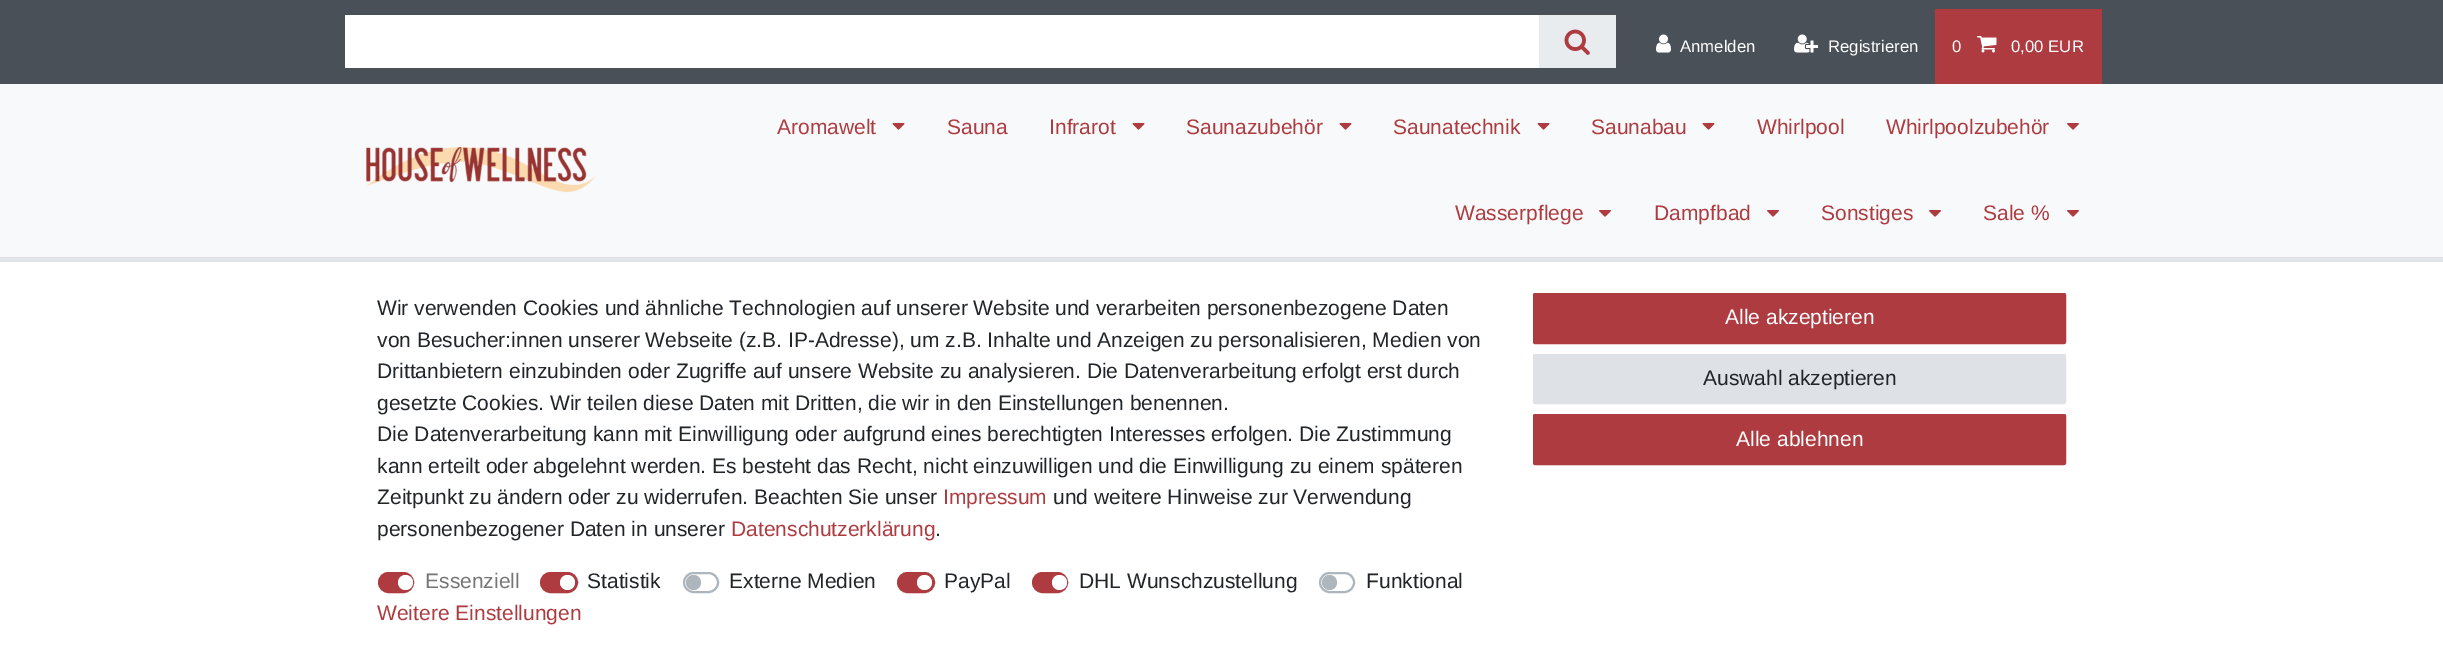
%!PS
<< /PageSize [2443 659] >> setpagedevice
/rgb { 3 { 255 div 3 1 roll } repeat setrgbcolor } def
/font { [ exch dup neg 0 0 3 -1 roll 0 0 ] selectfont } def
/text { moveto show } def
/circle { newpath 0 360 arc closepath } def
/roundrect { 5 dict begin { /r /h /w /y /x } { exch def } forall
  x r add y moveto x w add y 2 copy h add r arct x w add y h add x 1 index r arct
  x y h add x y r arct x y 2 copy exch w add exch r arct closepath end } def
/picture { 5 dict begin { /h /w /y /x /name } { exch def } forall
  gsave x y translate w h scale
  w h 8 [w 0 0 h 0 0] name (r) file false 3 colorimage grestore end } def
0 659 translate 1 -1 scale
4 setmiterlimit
248 249 250 rgb
0 0 2443 659 rectfill
73 80 87 rgb
0 0 2443 84 rectfill
255 255 255 rgb
345 15 1194 53 rectfill
233 236 239 rgb
1539 15 77 53 rectfill
(img_01.rgb) 1564 29 26 26 picture
(img_02.rgb) 1656 34 15 19 picture
(img_03.rgb) 1794 34 24 19 picture
173 59 64 rgb
1935 9 167 75 rectfill
(img_04.rgb) 1977 36 20 17 picture
222 226 230 rgb
0 257 2443 1 rectfill
(img_05.rgb) 366 147 230 46 picture
(img_06.rgb) 892 123 13 7 picture
(img_06.rgb) 1132 123 13 7 picture
(img_06.rgb) 1339 123 13 7 picture
(img_06.rgb) 1537 123 13 7 picture
(img_06.rgb) 1702 123 13 7 picture
(img_07.rgb) 2067 123 12 7 picture
(img_07.rgb) 1599 210 12 7 picture
(img_07.rgb) 1767 210 12 7 picture
(img_07.rgb) 1929 210 12 7 picture
(img_07.rgb) 2067 210 12 7 picture
227 231 235 rgb
0 258 2443 2 rectfill
255 255 255 rgb
0 262 2443 397 rectfill
222 226 230 rgb
0 260 2443 2 rectfill
173 59 64 rgb
379 573 34 19 9.5 roundrect gsave fill grestore
2 setlinewidth
stroke
255 255 255 rgb
405.5 582.5 7.5 circle fill
173 59 64 rgb
541 573 36 19 9.5 roundrect gsave fill grestore
stroke
255 255 255 rgb
567.5 582.5 7.5 circle fill
173 181 189 rgb
684 573 34 19 9.5 roundrect stroke
693.5 582.5 7.5 circle fill
173 59 64 rgb
898 573 36 19 9.5 roundrect gsave fill grestore
stroke
255 255 255 rgb
924.5 582.5 7.5 circle fill
173 59 64 rgb
1033 573 34 19 9.5 roundrect gsave fill grestore
stroke
255 255 255 rgb
1059.5 582.5 7.5 circle fill
173 181 189 rgb
1320 573 34 19 9.5 roundrect stroke
1329.5 582.5 7.5 circle fill
173 59 64 rgb
1534 294 531 49 1 roundrect gsave fill grestore
stroke
222 226 230 rgb
1534 355 531 48 1 roundrect gsave fill grestore
stroke
173 59 64 rgb
1534 415 531 49 1 roundrect gsave fill grestore
stroke
/LiberationSans-Regular 16.75 font
255 255 255 rgb
(Anmelden) 1680 52 text
(Registrieren) 1828 52 text
(0) 1952 52 text
(0,00 EUR) 2011 52 text
/LiberationSans-Regular 21 font
173 59 64 rgb
(Aromawelt) 777 134 text
(Sauna) 947 134 text
(Infrarot) 1049 134 text
(Saunazubehör) 1186 134 text
(Saunatechnik) 1393 134 text
(Saunabau) 1591 134 text
(Whirlpool) 1757 134 text
(Whirlpoolzubehör) 1886 134 text
(Wasserpflege) 1455 220 text
(Dampfbad) 1654 220 text
(Sonstiges) 1821 220 text
(Sale %) 1983 220 text
33 37 41 rgb
(Wir verwenden Cookies und ähnliche Technologien auf unserer Website und verarbeiten personenbezogene Daten) 377 315 text
(von Besucher:innen unserer Webseite \(z.B. IP-Adresse\), um z.B. Inhalte und Anzeigen zu personalisieren, Medien von) 377 347 text
(Drittanbietern einzubinden oder Zugriffe auf unsere Website zu analysieren. Die Datenverarbeitung erfolgt erst durch) 377 378 text
(gesetzte Cookies. Wir teilen diese Daten mit Dritten, die wir in den Einstellungen benennen.) 377 410 text
(Die Datenverarbeitung kann mit Einwilligung oder aufgrund eines berechtigten Interesses erfolgen. Die Zustimmung) 377 441 text
(kann erteilt oder abgelehnt werden. Es besteht das Recht, nicht einzuwilligen und die Einwilligung zu einem späteren) 377 473 text
(Zeitpunkt zu ändern oder zu widerrufen. Beachten Sie unser) 377 504 text
173 59 64 rgb
(Impressum) 943 504 text
33 37 41 rgb
(und weitere Hinweise zur Verwendung) 1053 504 text
(personenbezogener Daten in unserer) 377 536 text
173 59 64 rgb
(Datenschutzerklärung) 731 536 text
33 37 41 rgb
(.) 935 536 text
118 118 118 rgb
(Essenziell) 425 588 text
33 37 41 rgb
(Statistik) 587 588 text
(Externe Medien) 729 588 text
(PayPal) 944 588 text
(DHL Wunschzustellung) 1079 588 text
(Funktional) 1366 588 text
173 59 64 rgb
(Weitere Einstellungen) 377 620 text
255 255 255 rgb
(Alle akzeptieren) 1725 324 text
33 37 41 rgb
(Auswahl akzeptieren) 1703 385 text
255 255 255 rgb
(Alle ablehnen) 1736 446 text
showpage
